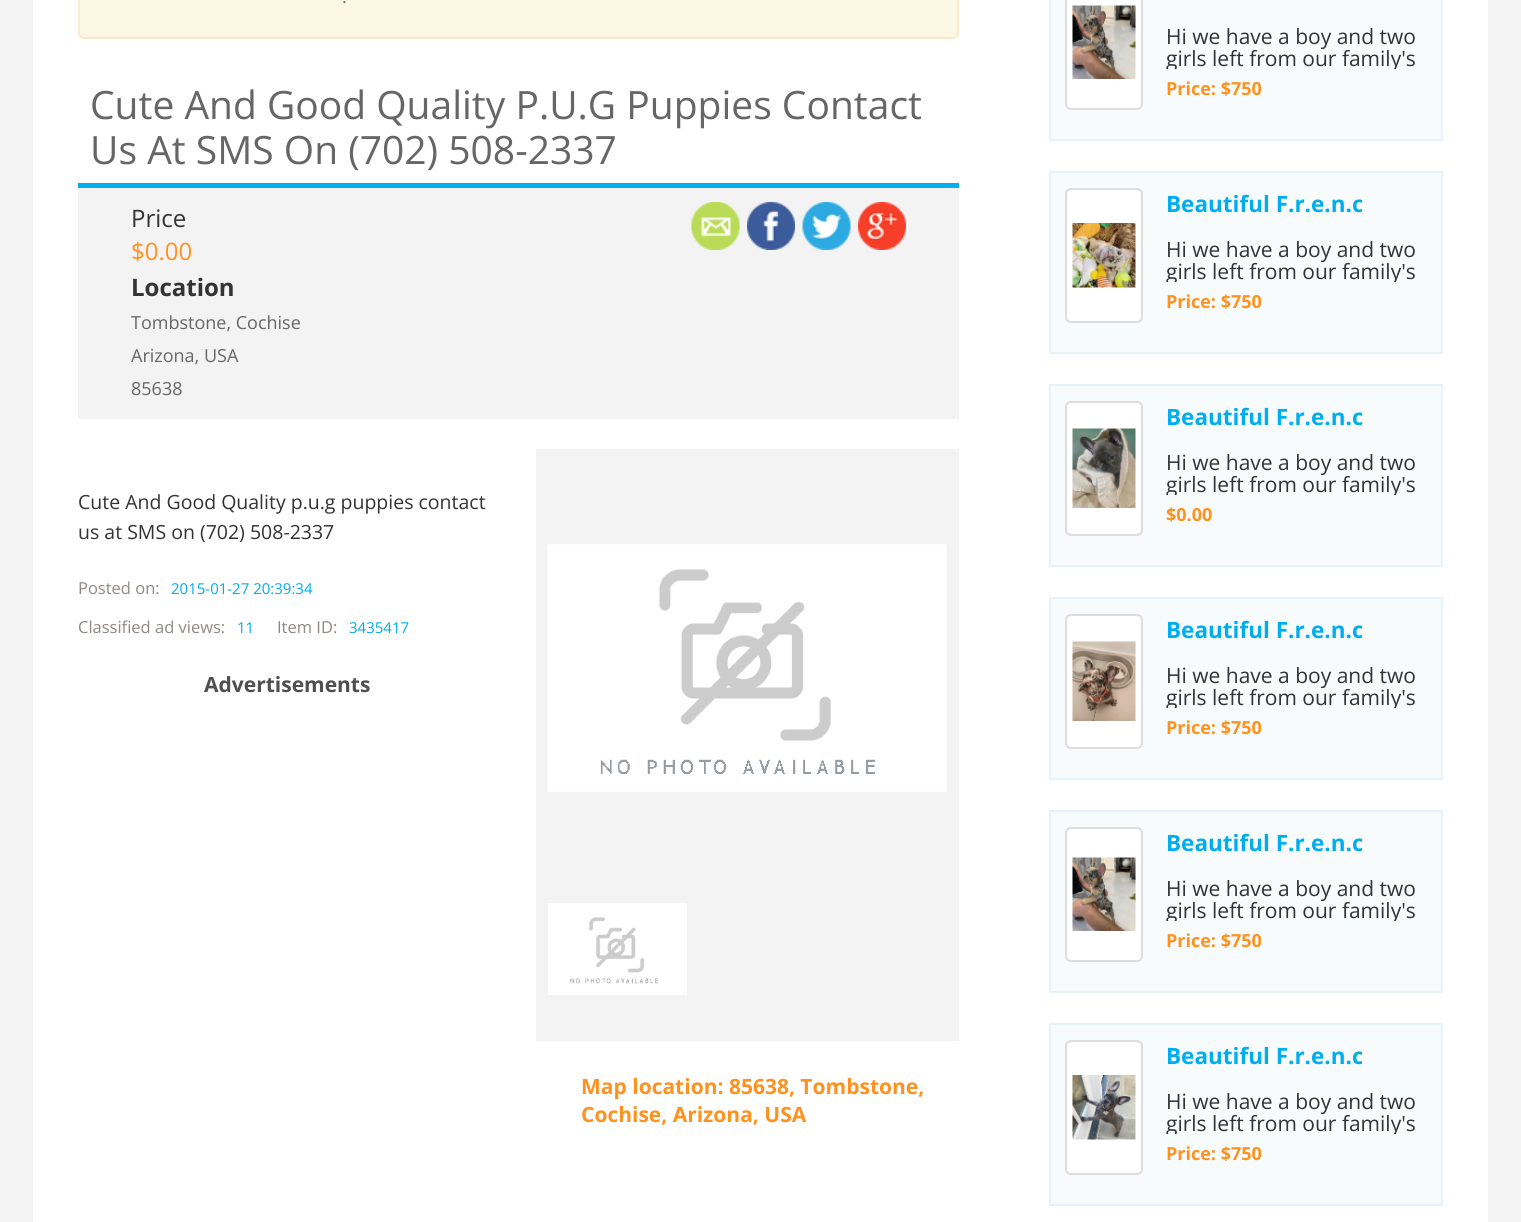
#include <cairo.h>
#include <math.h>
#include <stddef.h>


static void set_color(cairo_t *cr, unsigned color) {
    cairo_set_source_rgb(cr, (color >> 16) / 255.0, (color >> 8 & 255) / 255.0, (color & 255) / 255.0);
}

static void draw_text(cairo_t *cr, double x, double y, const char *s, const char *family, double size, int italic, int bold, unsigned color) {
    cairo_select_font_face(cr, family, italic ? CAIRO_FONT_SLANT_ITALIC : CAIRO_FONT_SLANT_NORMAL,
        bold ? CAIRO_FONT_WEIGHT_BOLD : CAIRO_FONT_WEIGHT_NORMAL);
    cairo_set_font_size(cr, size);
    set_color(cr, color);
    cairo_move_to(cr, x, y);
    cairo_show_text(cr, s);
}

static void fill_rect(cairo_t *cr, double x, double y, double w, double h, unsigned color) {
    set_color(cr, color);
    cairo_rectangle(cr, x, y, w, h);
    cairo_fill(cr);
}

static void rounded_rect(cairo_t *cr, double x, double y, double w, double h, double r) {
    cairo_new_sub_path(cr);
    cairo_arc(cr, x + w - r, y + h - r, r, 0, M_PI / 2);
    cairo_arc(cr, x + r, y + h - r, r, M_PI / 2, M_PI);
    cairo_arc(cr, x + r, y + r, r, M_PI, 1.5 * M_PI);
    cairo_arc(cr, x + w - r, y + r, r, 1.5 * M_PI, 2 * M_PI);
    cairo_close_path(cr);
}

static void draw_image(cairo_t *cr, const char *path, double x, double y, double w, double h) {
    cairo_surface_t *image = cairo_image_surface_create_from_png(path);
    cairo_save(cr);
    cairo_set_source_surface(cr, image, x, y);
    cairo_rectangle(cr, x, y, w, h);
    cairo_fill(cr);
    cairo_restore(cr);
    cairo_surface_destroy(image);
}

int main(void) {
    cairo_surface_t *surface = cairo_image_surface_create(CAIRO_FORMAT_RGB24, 1521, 1222);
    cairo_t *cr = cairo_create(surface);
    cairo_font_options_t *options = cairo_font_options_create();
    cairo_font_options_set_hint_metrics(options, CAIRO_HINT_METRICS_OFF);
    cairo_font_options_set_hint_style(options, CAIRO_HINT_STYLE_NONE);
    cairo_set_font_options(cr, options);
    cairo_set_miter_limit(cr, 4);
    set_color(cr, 0xF3F3F3);
    cairo_paint(cr);
    fill_rect(cr, 33, 0, 1455, 1222, 0xFFFFFF);
    set_color(cr, 0xFCF8E3);
    rounded_rect(cr, 79, -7, 879, 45, 5);
    cairo_fill_preserve(cr);
    set_color(cr, 0xFAEBCC);
    cairo_stroke(cr);
    draw_text(cr, 342, 3, ".", "Open Sans", 18, 0, 0, 0x8A6D3B);
    fill_rect(cr, 78, 183, 881, 5, 0x00AEEF);
    draw_text(cr, 90, 119, "Cute And Good Quality P.U.G Puppies Contact", "Open Sans", 39, 0, 0, 0x666666);
    draw_text(cr, 90, 164, "Us At SMS On (702) 508-2337", "Open Sans", 39, 0, 0, 0x666666);
    fill_rect(cr, 78, 188, 881, 231, 0xF4F3F3);
    draw_text(cr, 131, 227, "Price", "Open Sans", 24, 0, 0, 0x333333);
    draw_text(cr, 131, 260, "$0.00", "Open Sans", 24, 0, 0, 0xFF921E);
    draw_text(cr, 131, 296, "Location", "Open Sans", 24, 0, 1, 0x333333);
    draw_text(cr, 131, 329, "Tombstone, Cochise", "Open Sans", 18, 0, 0, 0x666666);
    draw_text(cr, 131, 362, "Arizona, USA", "Open Sans", 18, 0, 0, 0x666666);
    draw_text(cr, 131, 395, "85638", "Open Sans", 18, 0, 0, 0x666666);
    draw_image(cr, "assets/img1.png", 691, 202, 49, 48);
    draw_image(cr, "assets/img2.png", 747, 202, 48, 48);
    draw_image(cr, "assets/img3.png", 802, 202, 49, 48);
    draw_image(cr, "assets/img4.png", 858, 202, 48, 48);
    draw_text(cr, 78, 509, "Cute And Good Quality p.u.g puppies contact", "Open Sans", 19.5, 0, 0, 0x333333);
    draw_text(cr, 78, 539, "us at SMS on (702) 508-2337", "Open Sans", 19.5, 0, 0, 0x333333);
    draw_text(cr, 78, 594, "Posted on:", "Open Sans", 16.5, 0, 0, 0x908884);
    draw_text(cr, 171, 594, "2015-01-27 20:39:34", "Open Sans", 15, 0, 0, 0x00AEEF);
    draw_text(cr, 78, 633, "Classified ad views:", "Open Sans", 16.5, 0, 0, 0x908884);
    draw_text(cr, 237, 633, "11", "Open Sans", 15, 0, 0, 0x00AEEF);
    draw_text(cr, 277, 633, "Item ID:", "Open Sans", 16.5, 0, 0, 0x908884);
    draw_text(cr, 349, 633, "3435417", "Open Sans", 15, 0, 0, 0x00AEEF);
    draw_text(cr, 204, 692, "Advertisements", "Open Sans", 21, 0, 1, 0x4F4F4F);
    fill_rect(cr, 536, 449, 423, 592, 0xF4F3F3);
    draw_image(cr, "assets/img5.png", 547, 544, 400, 248);
    fill_rect(cr, 548, 903, 139, 92, 0xFFFFFF);
    draw_image(cr, "assets/img6.png", 570, 917, 89, 67);
    draw_text(cr, 581, 1094, "Map location: 85638, Tombstone,", "Open Sans", 21, 0, 1, 0xFF921E);
    draw_text(cr, 581, 1122, "Cochise, Arizona, USA", "Open Sans", 21, 0, 1, 0xFF921E);
    set_color(cr, 0xF8FBFC);
    cairo_rectangle(cr, 1050, -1, 392, 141);
    cairo_fill_preserve(cr);
    set_color(cr, 0xE6F3FD);
    cairo_stroke(cr);
    set_color(cr, 0xFFFFFF);
    rounded_rect(cr, 1066, -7, 76, 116, 5);
    cairo_fill_preserve(cr);
    set_color(cr, 0xDDDDDD);
    cairo_stroke(cr);
    draw_image(cr, "assets/img7.png", 1072, 5, 64, 74);
    draw_text(cr, 1166, 44, "Hi we have a boy and two", "Open Sans", 21, 0, 0, 0x333333);
    cairo_save(cr);
    cairo_rectangle(cr, 1166, 24, 261, 45);
    cairo_clip(cr);
    draw_text(cr, 1166, 66, "girls left from our family's", "Open Sans", 21, 0, 0, 0x333333);
    cairo_restore(cr);
    draw_text(cr, 1166, 95, "Price: $750", "Open Sans", 18, 0, 1, 0xFF921E);
    set_color(cr, 0xF8FBFC);
    cairo_rectangle(cr, 1050, 172, 392, 181);
    cairo_fill_preserve(cr);
    set_color(cr, 0xE6F3FD);
    cairo_stroke(cr);
    set_color(cr, 0xFFFFFF);
    rounded_rect(cr, 1066, 189, 76, 133, 5);
    cairo_fill_preserve(cr);
    set_color(cr, 0xDDDDDD);
    cairo_stroke(cr);
    draw_image(cr, "assets/img8.png", 1072, 223, 64, 65);
    cairo_save(cr);
    cairo_rectangle(cr, 1166, 188, 196, 30);
    cairo_clip(cr);
    draw_text(cr, 1166, 212, "Beautiful F.r.e.n.c", "Open Sans", 22.5, 0, 1, 0x00AEEF);
    cairo_restore(cr);
    draw_text(cr, 1166, 257, "Hi we have a boy and two", "Open Sans", 21, 0, 0, 0x333333);
    cairo_save(cr);
    cairo_rectangle(cr, 1166, 237, 261, 45);
    cairo_clip(cr);
    draw_text(cr, 1166, 279, "girls left from our family's", "Open Sans", 21, 0, 0, 0x333333);
    cairo_restore(cr);
    draw_text(cr, 1166, 308, "Price: $750", "Open Sans", 18, 0, 1, 0xFF921E);
    set_color(cr, 0xF8FBFC);
    cairo_rectangle(cr, 1050, 385, 392, 181);
    cairo_fill_preserve(cr);
    set_color(cr, 0xE6F3FD);
    cairo_stroke(cr);
    set_color(cr, 0xFFFFFF);
    rounded_rect(cr, 1066, 402, 76, 133, 5);
    cairo_fill_preserve(cr);
    set_color(cr, 0xDDDDDD);
    cairo_stroke(cr);
    draw_image(cr, "assets/img9.png", 1072, 428, 64, 80);
    cairo_save(cr);
    cairo_rectangle(cr, 1166, 401, 196, 30);
    cairo_clip(cr);
    draw_text(cr, 1166, 425, "Beautiful F.r.e.n.c", "Open Sans", 22.5, 0, 1, 0x00AEEF);
    cairo_restore(cr);
    draw_text(cr, 1166, 470, "Hi we have a boy and two", "Open Sans", 21, 0, 0, 0x333333);
    cairo_save(cr);
    cairo_rectangle(cr, 1166, 450, 261, 45);
    cairo_clip(cr);
    draw_text(cr, 1166, 492, "girls left from our family's", "Open Sans", 21, 0, 0, 0x333333);
    cairo_restore(cr);
    draw_text(cr, 1166, 521, "$0.00", "Open Sans", 18, 0, 1, 0xFF921E);
    set_color(cr, 0xF8FBFC);
    cairo_rectangle(cr, 1050, 598, 392, 181);
    cairo_fill_preserve(cr);
    set_color(cr, 0xE6F3FD);
    cairo_stroke(cr);
    set_color(cr, 0xFFFFFF);
    rounded_rect(cr, 1066, 615, 76, 133, 5);
    cairo_fill_preserve(cr);
    set_color(cr, 0xDDDDDD);
    cairo_stroke(cr);
    draw_image(cr, "assets/img10.png", 1072, 641, 64, 80);
    cairo_save(cr);
    cairo_rectangle(cr, 1166, 614, 196, 30);
    cairo_clip(cr);
    draw_text(cr, 1166, 638, "Beautiful F.r.e.n.c", "Open Sans", 22.5, 0, 1, 0x00AEEF);
    cairo_restore(cr);
    draw_text(cr, 1166, 683, "Hi we have a boy and two", "Open Sans", 21, 0, 0, 0x333333);
    cairo_save(cr);
    cairo_rectangle(cr, 1166, 663, 261, 45);
    cairo_clip(cr);
    draw_text(cr, 1166, 705, "girls left from our family's", "Open Sans", 21, 0, 0, 0x333333);
    cairo_restore(cr);
    draw_text(cr, 1166, 734, "Price: $750", "Open Sans", 18, 0, 1, 0xFF921E);
    set_color(cr, 0xF8FBFC);
    cairo_rectangle(cr, 1050, 811, 392, 181);
    cairo_fill_preserve(cr);
    set_color(cr, 0xE6F3FD);
    cairo_stroke(cr);
    set_color(cr, 0xFFFFFF);
    rounded_rect(cr, 1066, 828, 76, 133, 5);
    cairo_fill_preserve(cr);
    set_color(cr, 0xDDDDDD);
    cairo_stroke(cr);
    draw_image(cr, "assets/img7.png", 1072, 857, 64, 74);
    cairo_save(cr);
    cairo_rectangle(cr, 1166, 827, 196, 30);
    cairo_clip(cr);
    draw_text(cr, 1166, 851, "Beautiful F.r.e.n.c", "Open Sans", 22.5, 0, 1, 0x00AEEF);
    cairo_restore(cr);
    draw_text(cr, 1166, 896, "Hi we have a boy and two", "Open Sans", 21, 0, 0, 0x333333);
    cairo_save(cr);
    cairo_rectangle(cr, 1166, 876, 261, 45);
    cairo_clip(cr);
    draw_text(cr, 1166, 918, "girls left from our family's", "Open Sans", 21, 0, 0, 0x333333);
    cairo_restore(cr);
    draw_text(cr, 1166, 947, "Price: $750", "Open Sans", 18, 0, 1, 0xFF921E);
    set_color(cr, 0xF8FBFC);
    cairo_rectangle(cr, 1050, 1024, 392, 181);
    cairo_fill_preserve(cr);
    set_color(cr, 0xE6F3FD);
    cairo_stroke(cr);
    set_color(cr, 0xFFFFFF);
    rounded_rect(cr, 1066, 1041, 76, 133, 5);
    cairo_fill_preserve(cr);
    set_color(cr, 0xDDDDDD);
    cairo_stroke(cr);
    draw_image(cr, "assets/img11.png", 1072, 1075, 64, 65);
    cairo_save(cr);
    cairo_rectangle(cr, 1166, 1040, 196, 30);
    cairo_clip(cr);
    draw_text(cr, 1166, 1064, "Beautiful F.r.e.n.c", "Open Sans", 22.5, 0, 1, 0x00AEEF);
    cairo_restore(cr);
    draw_text(cr, 1166, 1109, "Hi we have a boy and two", "Open Sans", 21, 0, 0, 0x333333);
    cairo_save(cr);
    cairo_rectangle(cr, 1166, 1089, 261, 45);
    cairo_clip(cr);
    draw_text(cr, 1166, 1131, "girls left from our family's", "Open Sans", 21, 0, 0, 0x333333);
    cairo_restore(cr);
    draw_text(cr, 1166, 1160, "Price: $750", "Open Sans", 18, 0, 1, 0xFF921E);
    cairo_surface_write_to_png(surface, "output.png");
    cairo_font_options_destroy(options);
    cairo_destroy(cr);
    cairo_surface_destroy(surface);
    return 0;
}
